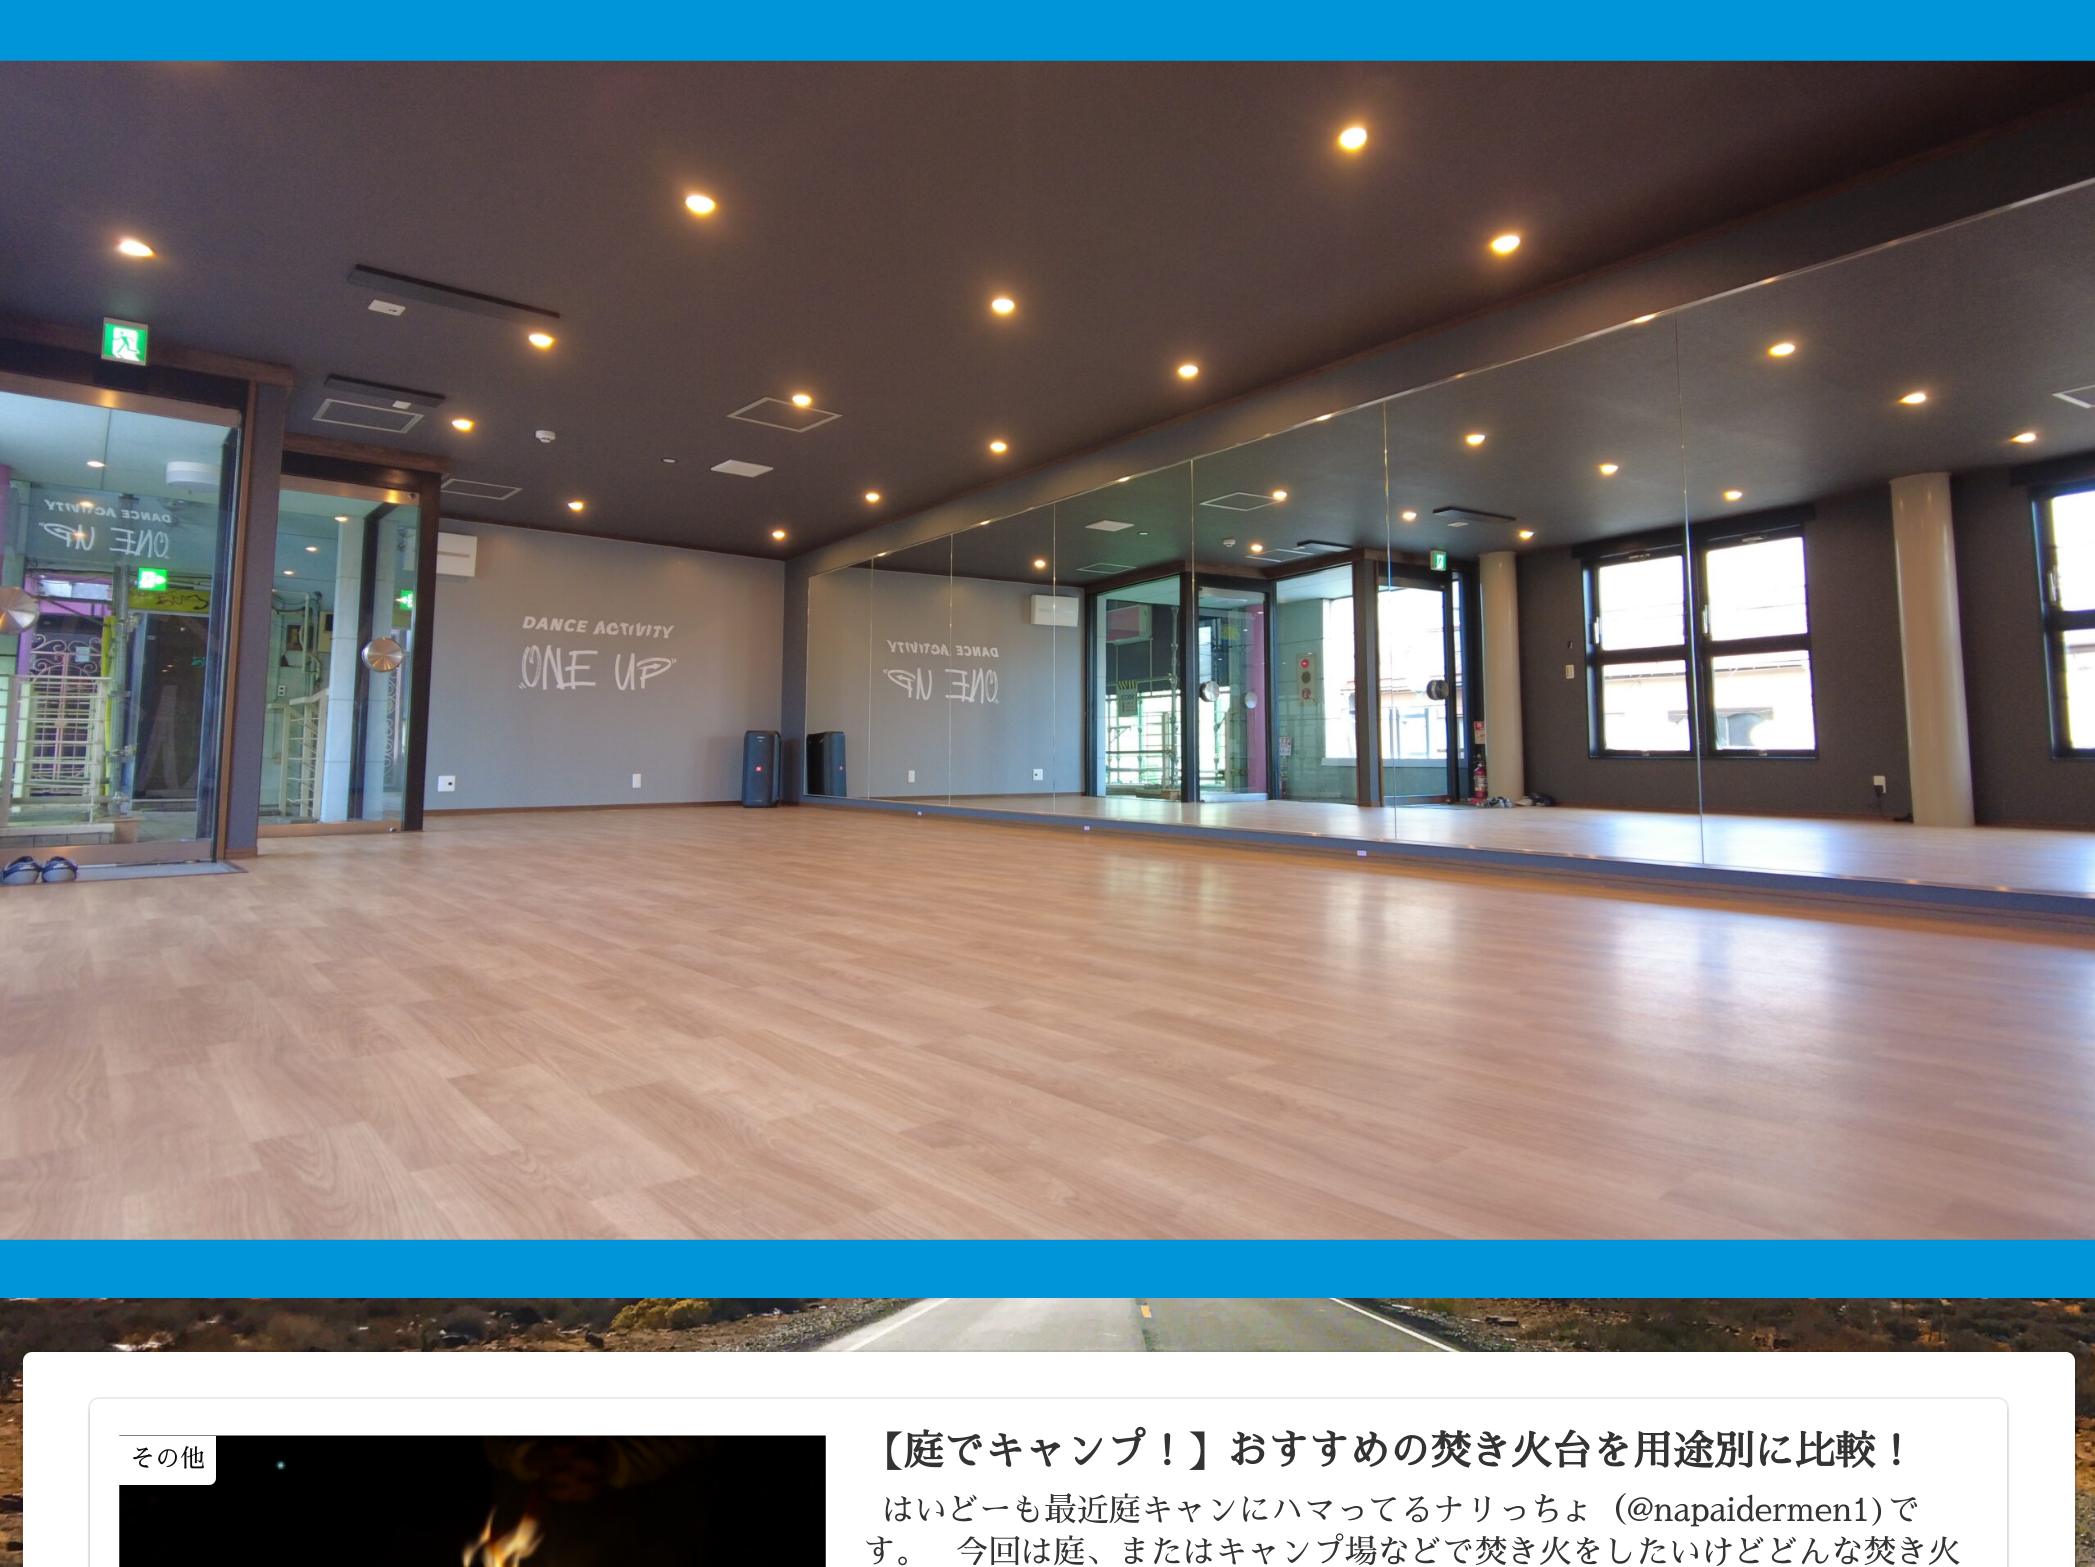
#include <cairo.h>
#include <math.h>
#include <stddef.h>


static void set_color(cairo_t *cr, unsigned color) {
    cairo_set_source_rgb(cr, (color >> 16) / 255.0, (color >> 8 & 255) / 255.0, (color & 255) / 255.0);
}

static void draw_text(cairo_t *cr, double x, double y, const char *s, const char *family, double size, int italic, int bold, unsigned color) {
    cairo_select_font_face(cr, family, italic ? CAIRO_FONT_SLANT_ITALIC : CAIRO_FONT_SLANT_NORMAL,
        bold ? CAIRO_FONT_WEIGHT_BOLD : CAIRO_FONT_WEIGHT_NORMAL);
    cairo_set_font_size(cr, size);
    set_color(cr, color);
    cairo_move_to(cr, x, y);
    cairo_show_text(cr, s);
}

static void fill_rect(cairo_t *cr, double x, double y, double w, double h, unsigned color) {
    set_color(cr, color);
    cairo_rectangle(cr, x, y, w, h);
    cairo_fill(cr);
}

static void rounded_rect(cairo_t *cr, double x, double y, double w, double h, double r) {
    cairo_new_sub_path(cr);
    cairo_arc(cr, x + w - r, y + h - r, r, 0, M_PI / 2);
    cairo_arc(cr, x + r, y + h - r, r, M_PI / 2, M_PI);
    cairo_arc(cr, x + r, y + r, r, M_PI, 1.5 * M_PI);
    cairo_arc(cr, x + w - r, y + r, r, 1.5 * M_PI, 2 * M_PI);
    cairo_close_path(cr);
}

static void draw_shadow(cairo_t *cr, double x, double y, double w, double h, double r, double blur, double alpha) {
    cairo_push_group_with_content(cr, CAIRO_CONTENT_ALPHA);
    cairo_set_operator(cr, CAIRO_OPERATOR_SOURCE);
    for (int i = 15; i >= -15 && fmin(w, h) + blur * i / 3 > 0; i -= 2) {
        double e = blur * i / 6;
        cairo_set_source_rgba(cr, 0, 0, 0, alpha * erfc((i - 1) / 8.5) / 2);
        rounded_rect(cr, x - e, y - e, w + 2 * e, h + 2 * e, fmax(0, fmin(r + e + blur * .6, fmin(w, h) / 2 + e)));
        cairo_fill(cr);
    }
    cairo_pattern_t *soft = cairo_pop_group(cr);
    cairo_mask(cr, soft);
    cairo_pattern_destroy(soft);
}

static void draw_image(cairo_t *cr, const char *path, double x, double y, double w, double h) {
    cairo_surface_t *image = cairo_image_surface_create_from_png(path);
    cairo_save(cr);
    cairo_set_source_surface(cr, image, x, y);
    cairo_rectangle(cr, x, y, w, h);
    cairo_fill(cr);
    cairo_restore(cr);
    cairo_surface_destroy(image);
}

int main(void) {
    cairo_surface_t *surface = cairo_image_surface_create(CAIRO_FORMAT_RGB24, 2095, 1567);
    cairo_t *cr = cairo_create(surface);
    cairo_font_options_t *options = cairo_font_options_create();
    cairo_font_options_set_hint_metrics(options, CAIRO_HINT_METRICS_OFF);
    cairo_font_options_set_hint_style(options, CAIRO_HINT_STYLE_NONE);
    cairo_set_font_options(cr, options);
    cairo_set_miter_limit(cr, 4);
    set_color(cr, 0xFFFFFF);
    cairo_paint(cr);
    draw_image(cr, "assets/img1.png", 0, 1298, 2095, 269);
    fill_rect(cr, 0, 0, 2095, 1298, 0x0095D9);
    draw_image(cr, "assets/img2.png", 0, 60, 2095, 1180);
    rounded_rect(cr, 21, 1351, 2055, 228, 10);
    cairo_set_source_rgba(cr, 0, 0, 0, 0.08);
    cairo_stroke(cr);
    set_color(cr, 0x000000);
    draw_shadow(cr, 23, 1357, 2052, 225, 9, 2, 0.16);
    set_color(cr, 0xFFFFFF);
    rounded_rect(cr, 23, 1352, 2052, 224, 9);
    cairo_fill(cr);
    rounded_rect(cr, 89, 1398, 1919, 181, 10);
    set_color(cr, 0xEBEBEB);
    cairo_stroke(cr);
    cairo_save(cr);
    cairo_set_fill_rule(cr, CAIRO_FILL_RULE_EVEN_ODD);
    cairo_new_path(cr);
    cairo_move_to(cr, 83, 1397);
    cairo_line_to(cr, 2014, 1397);
    cairo_line_to(cr, 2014, 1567);
    cairo_line_to(cr, 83, 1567);
    cairo_close_path(cr);
    cairo_move_to(cr, 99, 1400);
    cairo_line_to(cr, 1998, 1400);
    cairo_curve_to(cr, 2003, 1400, 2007, 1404, 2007, 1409);
    cairo_line_to(cr, 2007, 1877);
    cairo_curve_to(cr, 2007, 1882, 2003, 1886, 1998, 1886);
    cairo_line_to(cr, 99, 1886);
    cairo_curve_to(cr, 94, 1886, 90, 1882, 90, 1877);
    cairo_line_to(cr, 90, 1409);
    cairo_curve_to(cr, 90, 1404, 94, 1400, 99, 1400);
    cairo_close_path(cr);
    cairo_clip(cr);
    set_color(cr, 0x000000);
    draw_shadow(cr, 90, 1404, 1917, 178, 9, 2, 0.16);
    cairo_restore(cr);
    draw_image(cr, "assets/img3.png", 119, 1435, 707, 132);
    set_color(cr, 0xFFFFFF);
    cairo_new_path(cr);
    cairo_move_to(cr, 119, 1436);
    cairo_line_to(cr, 216, 1436);
    cairo_line_to(cr, 216, 1478);
    cairo_curve_to(cr, 216, 1482, 213, 1485, 209, 1485);
    cairo_line_to(cr, 119, 1485);
    cairo_close_path(cr);
    cairo_fill(cr);
    draw_text(cr, 130, 1467, "その他", "Sawarabi Mincho", 25, 0, 0, 0x0A0A0A);
    draw_text(cr, 863, 1465, "【庭でキャンプ！】おすすめの焚き火台を用途別に比較！", "Sawarabi Mincho", 40.5, 0, 1, 0x333333);
    draw_text(cr, 882, 1521, "はいどーも最近庭キャンにハマってるナリっちょ（@napaidermen1)で", "Sawarabi Mincho", 32.4, 0, 0, 0x333333);
    draw_text(cr, 863, 1563, "す。", "Sawarabi Mincho", 32.4, 0, 0, 0x333333);
    draw_text(cr, 956, 1563, "今回は庭、またはキャンプ場などで焚き火をしたいけどどんな焚き火", "Sawarabi Mincho", 32.4, 0, 0, 0x333333);
    cairo_surface_write_to_png(surface, "output.png");
    cairo_font_options_destroy(options);
    cairo_destroy(cr);
    cairo_surface_destroy(surface);
    return 0;
}
